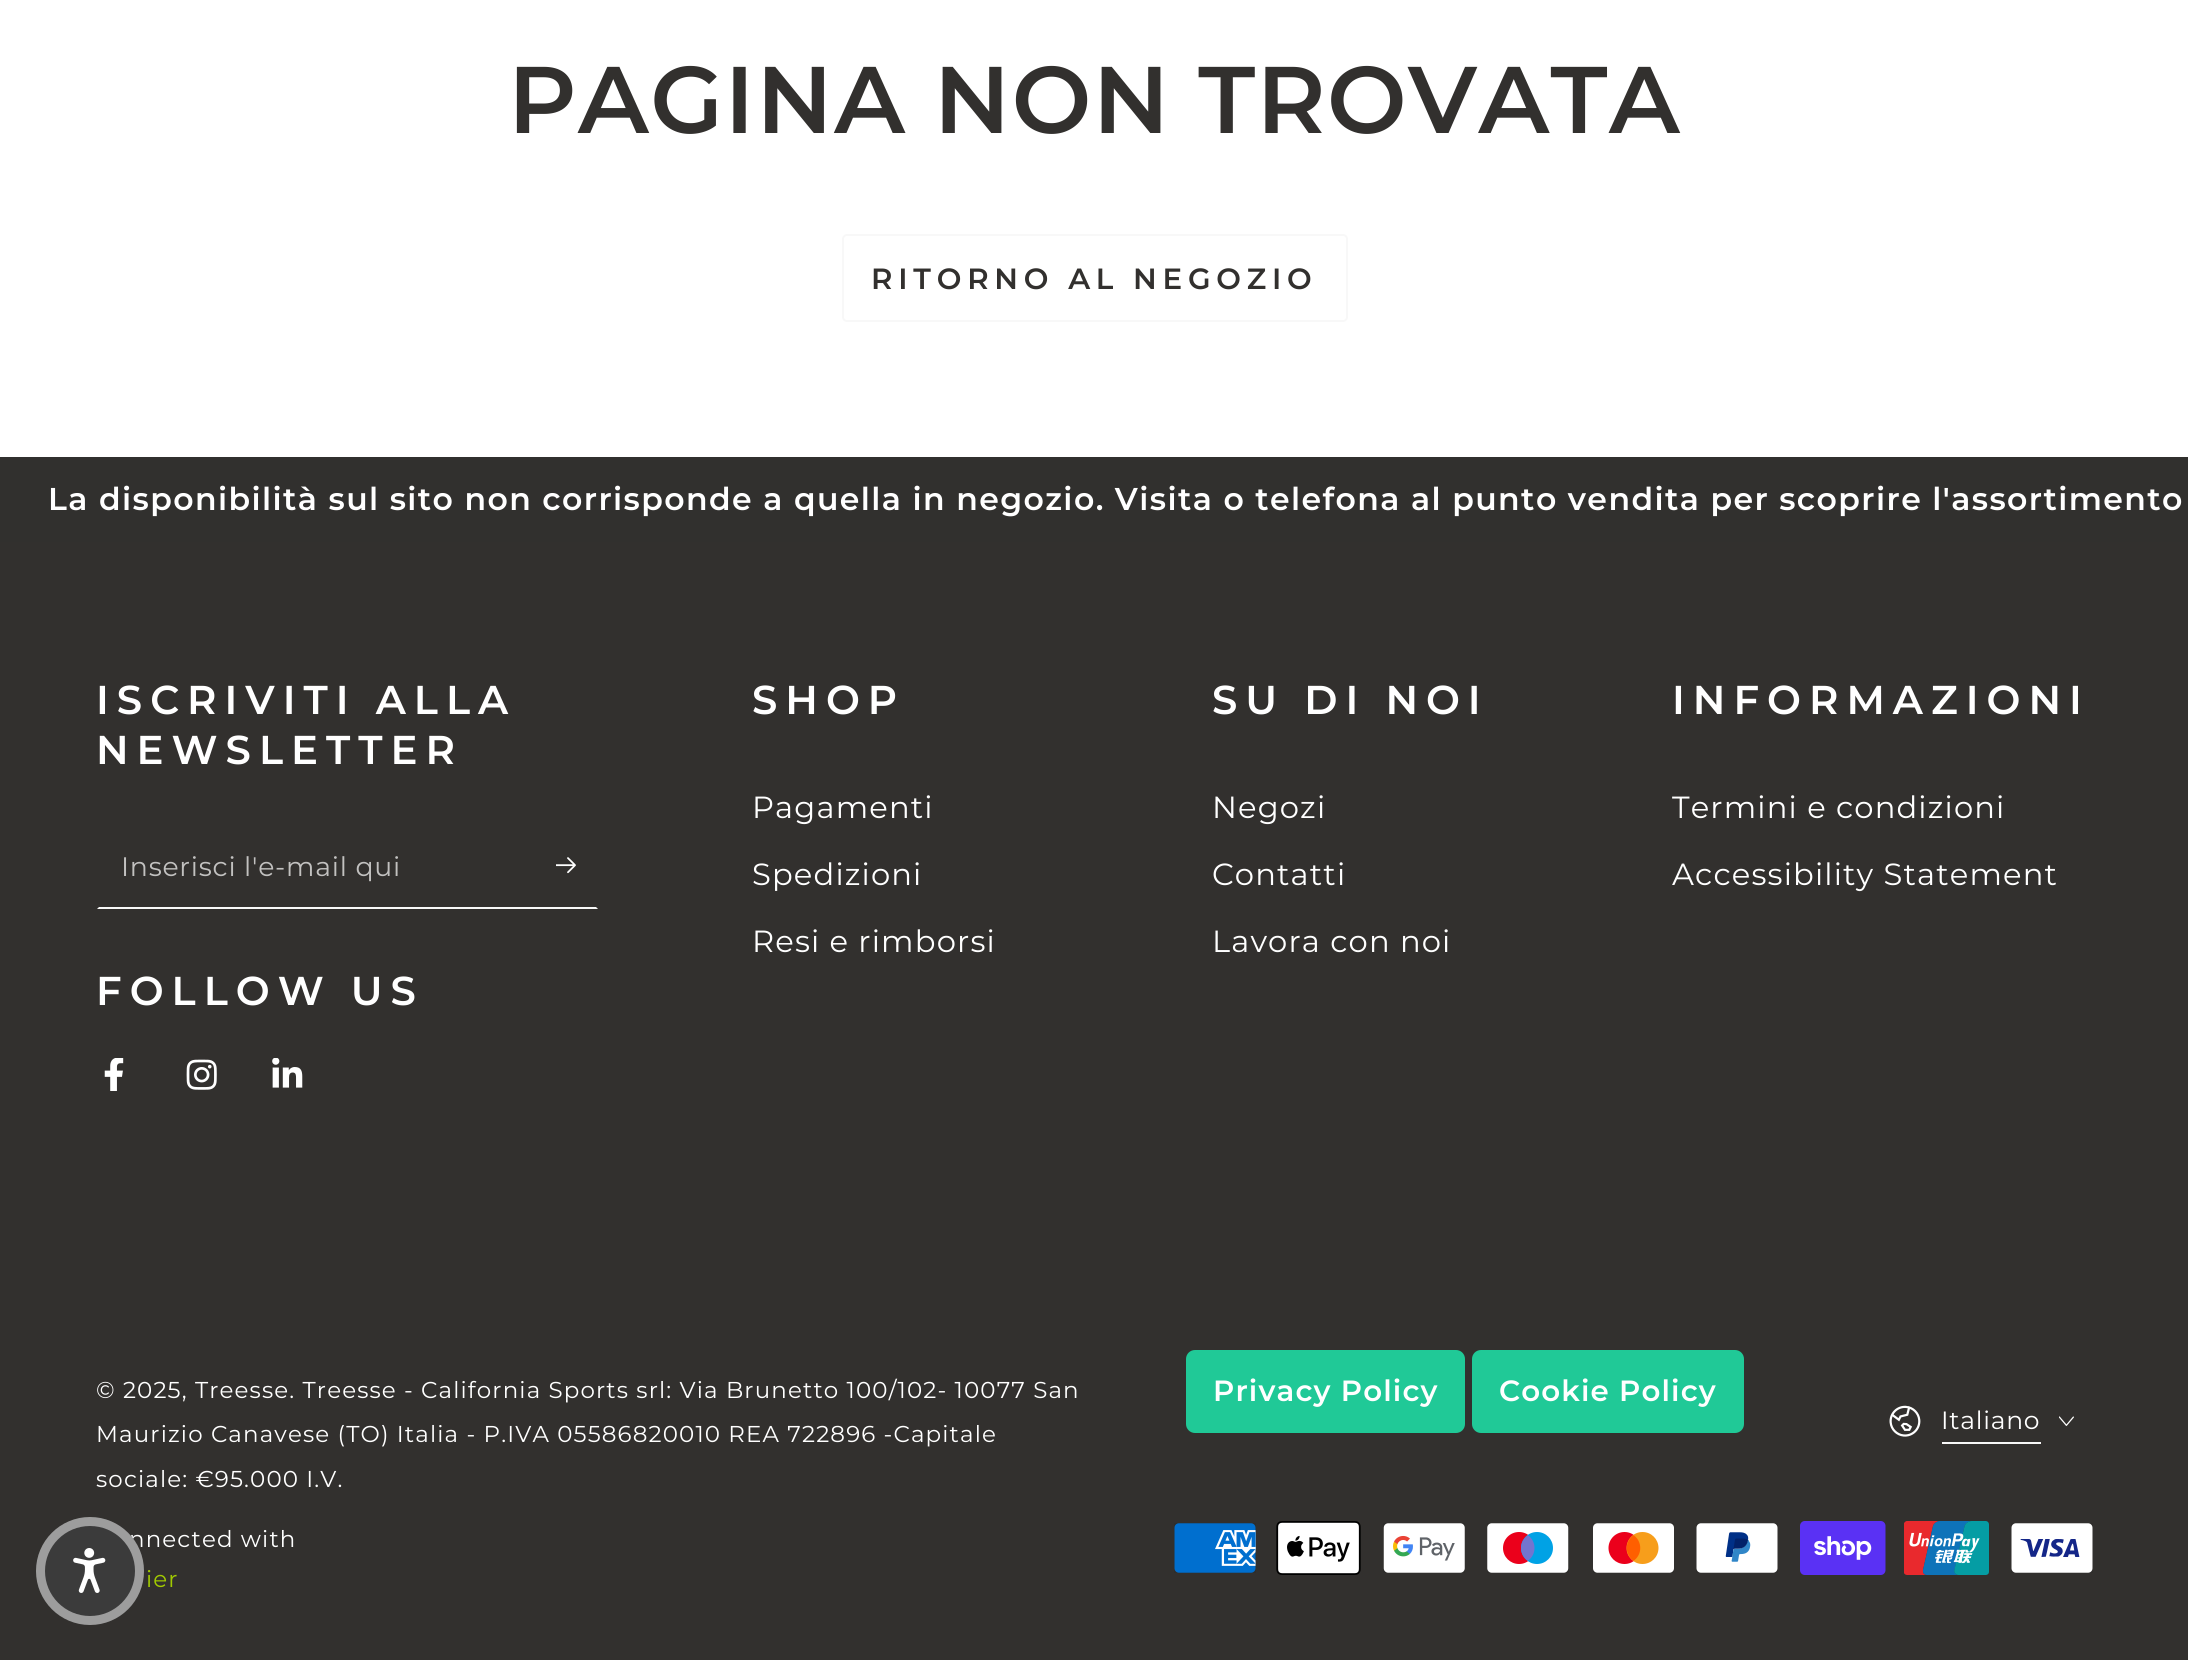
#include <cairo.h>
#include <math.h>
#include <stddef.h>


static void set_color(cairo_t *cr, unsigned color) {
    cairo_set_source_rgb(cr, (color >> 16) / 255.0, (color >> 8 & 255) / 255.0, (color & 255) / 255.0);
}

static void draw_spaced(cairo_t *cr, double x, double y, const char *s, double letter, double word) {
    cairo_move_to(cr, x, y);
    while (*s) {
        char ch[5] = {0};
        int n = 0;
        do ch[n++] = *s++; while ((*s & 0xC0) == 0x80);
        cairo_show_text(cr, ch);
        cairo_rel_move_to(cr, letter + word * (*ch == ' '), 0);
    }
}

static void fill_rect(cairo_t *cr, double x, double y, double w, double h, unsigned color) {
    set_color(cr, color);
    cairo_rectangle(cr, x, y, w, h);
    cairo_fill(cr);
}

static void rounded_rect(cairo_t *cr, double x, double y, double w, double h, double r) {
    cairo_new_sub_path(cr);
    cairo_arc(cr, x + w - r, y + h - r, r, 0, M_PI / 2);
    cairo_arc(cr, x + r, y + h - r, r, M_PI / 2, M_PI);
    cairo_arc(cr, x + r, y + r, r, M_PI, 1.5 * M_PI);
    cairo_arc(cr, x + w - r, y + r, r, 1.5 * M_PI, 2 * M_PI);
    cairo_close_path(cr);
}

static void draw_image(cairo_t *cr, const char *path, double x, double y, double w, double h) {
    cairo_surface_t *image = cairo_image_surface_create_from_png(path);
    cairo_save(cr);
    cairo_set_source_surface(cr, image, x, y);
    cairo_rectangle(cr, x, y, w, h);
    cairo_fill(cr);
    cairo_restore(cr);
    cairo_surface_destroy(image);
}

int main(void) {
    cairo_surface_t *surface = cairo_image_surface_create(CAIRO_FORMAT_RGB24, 2188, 1660);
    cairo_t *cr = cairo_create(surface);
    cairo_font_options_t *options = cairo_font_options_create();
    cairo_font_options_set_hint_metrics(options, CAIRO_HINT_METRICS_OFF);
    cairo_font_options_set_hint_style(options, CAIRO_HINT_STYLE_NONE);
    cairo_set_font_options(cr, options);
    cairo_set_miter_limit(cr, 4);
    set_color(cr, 0xFFFFFF);
    cairo_paint(cr);
    cairo_select_font_face(cr, "Montserrat SemiBold", CAIRO_FONT_SLANT_NORMAL, CAIRO_FONT_WEIGHT_NORMAL);
    cairo_set_font_size(cr, 94.5);
    set_color(cr, 0x32302E);
    draw_spaced(cr, 508, 133, "PAGINA NON TROVATA", 1.42, 0);
    rounded_rect(cr, 843, 235, 504, 86, 4);
    set_color(cr, 0xF8F8F8);
    cairo_stroke(cr);
    cairo_set_font_size(cr, 29.25);
    set_color(cr, 0x32302E);
    draw_spaced(cr, 871, 289, "RITORNO AL NEGOZIO", 5.8, 0);
    fill_rect(cr, 0, 457, 2188, 85, 0x31302E);
    cairo_set_font_size(cr, 31.5);
    set_color(cr, 0xFFFFFF);
    draw_spaced(cr, 48, 510, "La disponibilità sul sito non corrisponde a quella in negozio. Visita o telefona al punto vendita per scoprire l'assortimento", 1.42, 0);
    fill_rect(cr, 0, 542, 2188, 1118, 0x32302E);
    cairo_set_font_size(cr, 40.25);
    set_color(cr, 0xFFFFFF);
    draw_spaced(cr, 96, 714, "ISCRIVITI ALLA", 8, 0);
    draw_spaced(cr, 96, 764, "NEWSLETTER", 8, 0);
    set_color(cr, 0xF8F8F8);
    cairo_new_path(cr);
    cairo_move_to(cr, 598, 909);
    cairo_line_to(cr, 97, 909);
    cairo_line_to(cr, 99, 907);
    cairo_line_to(cr, 596, 907);
    cairo_close_path(cr);
    cairo_fill(cr);
    cairo_select_font_face(cr, "Montserrat", CAIRO_FONT_SLANT_NORMAL, CAIRO_FONT_WEIGHT_NORMAL);
    cairo_set_font_size(cr, 26.75);
    set_color(cr, 0xC2C1C0);
    draw_spaced(cr, 121, 876, "Inserisci l'e-mail qui", 0.75, 0);
    draw_image(cr, "assets/img1.png", 556, 857, 20, 17);
    cairo_select_font_face(cr, "Montserrat SemiBold", CAIRO_FONT_SLANT_NORMAL, CAIRO_FONT_WEIGHT_NORMAL);
    cairo_set_font_size(cr, 40.25);
    set_color(cr, 0xFFFFFF);
    draw_spaced(cr, 96, 1005, "FOLLOW US", 8, 0);
    draw_image(cr, "assets/img2.png", 104, 1058, 20, 33);
    draw_image(cr, "assets/img3.png", 186, 1059, 31, 31);
    draw_image(cr, "assets/img4.png", 272, 1058, 31, 30);
    draw_spaced(cr, 752, 714, "SHOP", 8, 0);
    cairo_select_font_face(cr, "Montserrat", CAIRO_FONT_SLANT_NORMAL, CAIRO_FONT_WEIGHT_NORMAL);
    cairo_set_font_size(cr, 30.6);
    draw_spaced(cr, 752, 818, "Pagamenti", 1.15, 0);
    draw_spaced(cr, 752, 885, "Spedizioni", 1.15, 0);
    draw_spaced(cr, 752, 952, "Resi e rimborsi", 1.15, 0);
    cairo_select_font_face(cr, "Montserrat SemiBold", CAIRO_FONT_SLANT_NORMAL, CAIRO_FONT_WEIGHT_NORMAL);
    cairo_set_font_size(cr, 40.25);
    draw_spaced(cr, 1212, 714, "SU DI NOI", 8, 0);
    cairo_select_font_face(cr, "Montserrat", CAIRO_FONT_SLANT_NORMAL, CAIRO_FONT_WEIGHT_NORMAL);
    cairo_set_font_size(cr, 30.6);
    draw_spaced(cr, 1212, 818, "Negozi", 1.15, 0);
    draw_spaced(cr, 1212, 885, "Contatti", 1.15, 0);
    draw_spaced(cr, 1212, 952, "Lavora con noi", 1.15, 0);
    cairo_select_font_face(cr, "Montserrat SemiBold", CAIRO_FONT_SLANT_NORMAL, CAIRO_FONT_WEIGHT_NORMAL);
    cairo_set_font_size(cr, 40.25);
    draw_spaced(cr, 1672, 714, "INFORMAZIONI", 8, 0);
    cairo_select_font_face(cr, "Montserrat", CAIRO_FONT_SLANT_NORMAL, CAIRO_FONT_WEIGHT_NORMAL);
    cairo_set_font_size(cr, 30.6);
    draw_spaced(cr, 1672, 818, "Termini e condizioni", 1.15, 0);
    draw_spaced(cr, 1672, 885, "Accessibility Statement", 1.15, 0);
    cairo_set_font_size(cr, 22.95);
    draw_spaced(cr, 96, 1398, "© 2025, Treesse. Treesse - California Sports srl: Via Brunetto 100/102- 10077 San", 1.15, 0);
    draw_spaced(cr, 96, 1442, "Maurizio Canavese (TO) Italia - P.IVA 05586820010 REA 722896 -Capitale", 1.15, 0);
    draw_spaced(cr, 96, 1487, "sociale: €95.000 I.V.", 1.15, 0);
    draw_spaced(cr, 129, 1547, "nnected with", 1.15, 0);
    set_color(cr, 0xA1CA00);
    draw_spaced(cr, 146, 1587, "ier", 1.15, 0);
    set_color(cr, 0x20C997);
    rounded_rect(cr, 1186, 1350, 279, 83, 9);
    cairo_fill(cr);
    cairo_select_font_face(cr, "Montserrat SemiBold", CAIRO_FONT_SLANT_NORMAL, CAIRO_FONT_WEIGHT_NORMAL);
    cairo_set_font_size(cr, 29.25);
    set_color(cr, 0xFFFFFF);
    draw_spaced(cr, 1213, 1401, "Privacy Policy", 1.15, 0);
    set_color(cr, 0x20C997);
    rounded_rect(cr, 1472, 1350, 272, 83, 9);
    cairo_fill(cr);
    set_color(cr, 0xFFFFFF);
    draw_spaced(cr, 1499, 1401, "Cookie Policy", 1.15, 0);
    draw_image(cr, "assets/img5.png", 1889, 1405, 32, 32);
    fill_rect(cr, 1942, 1442, 99, 2, 0xF8F8F8);
    cairo_select_font_face(cr, "Montserrat", CAIRO_FONT_SLANT_NORMAL, CAIRO_FONT_WEIGHT_NORMAL);
    cairo_set_font_size(cr, 25);
    set_color(cr, 0xFFFFFF);
    draw_spaced(cr, 1941, 1429, "Italiano", 0.75, 0);
    draw_image(cr, "assets/img6.png", 2059, 1416, 15, 10);
    draw_image(cr, "assets/img7.png", 1174, 1523, 82, 50);
    draw_image(cr, "assets/img8.png", 1276, 1521, 85, 54);
    draw_image(cr, "assets/img9.png", 1383, 1523, 82, 50);
    draw_image(cr, "assets/img10.png", 1487, 1523, 82, 50);
    draw_image(cr, "assets/img11.png", 1593, 1523, 81, 50);
    draw_image(cr, "assets/img12.png", 1696, 1523, 82, 50);
    draw_image(cr, "assets/img13.png", 1800, 1521, 86, 54);
    draw_image(cr, "assets/img14.png", 1904, 1521, 85, 54);
    draw_image(cr, "assets/img15.png", 2011, 1523, 82, 50);
    set_color(cr, 0x3B3B3B);
    cairo_arc(cr, 90, 1571, 54, 0, 2 * M_PI);
    cairo_fill(cr);
    cairo_arc(cr, 90, 1571, 49.5, 0, 2 * M_PI);
    cairo_set_source_rgba(cr, 1, 1, 1, 0.5);
    cairo_set_line_width(cr, 9);
    cairo_stroke(cr);
    draw_image(cr, "assets/img16.png", 73, 1548, 33, 45);
    cairo_surface_write_to_png(surface, "output.png");
    cairo_font_options_destroy(options);
    cairo_destroy(cr);
    cairo_surface_destroy(surface);
    return 0;
}
